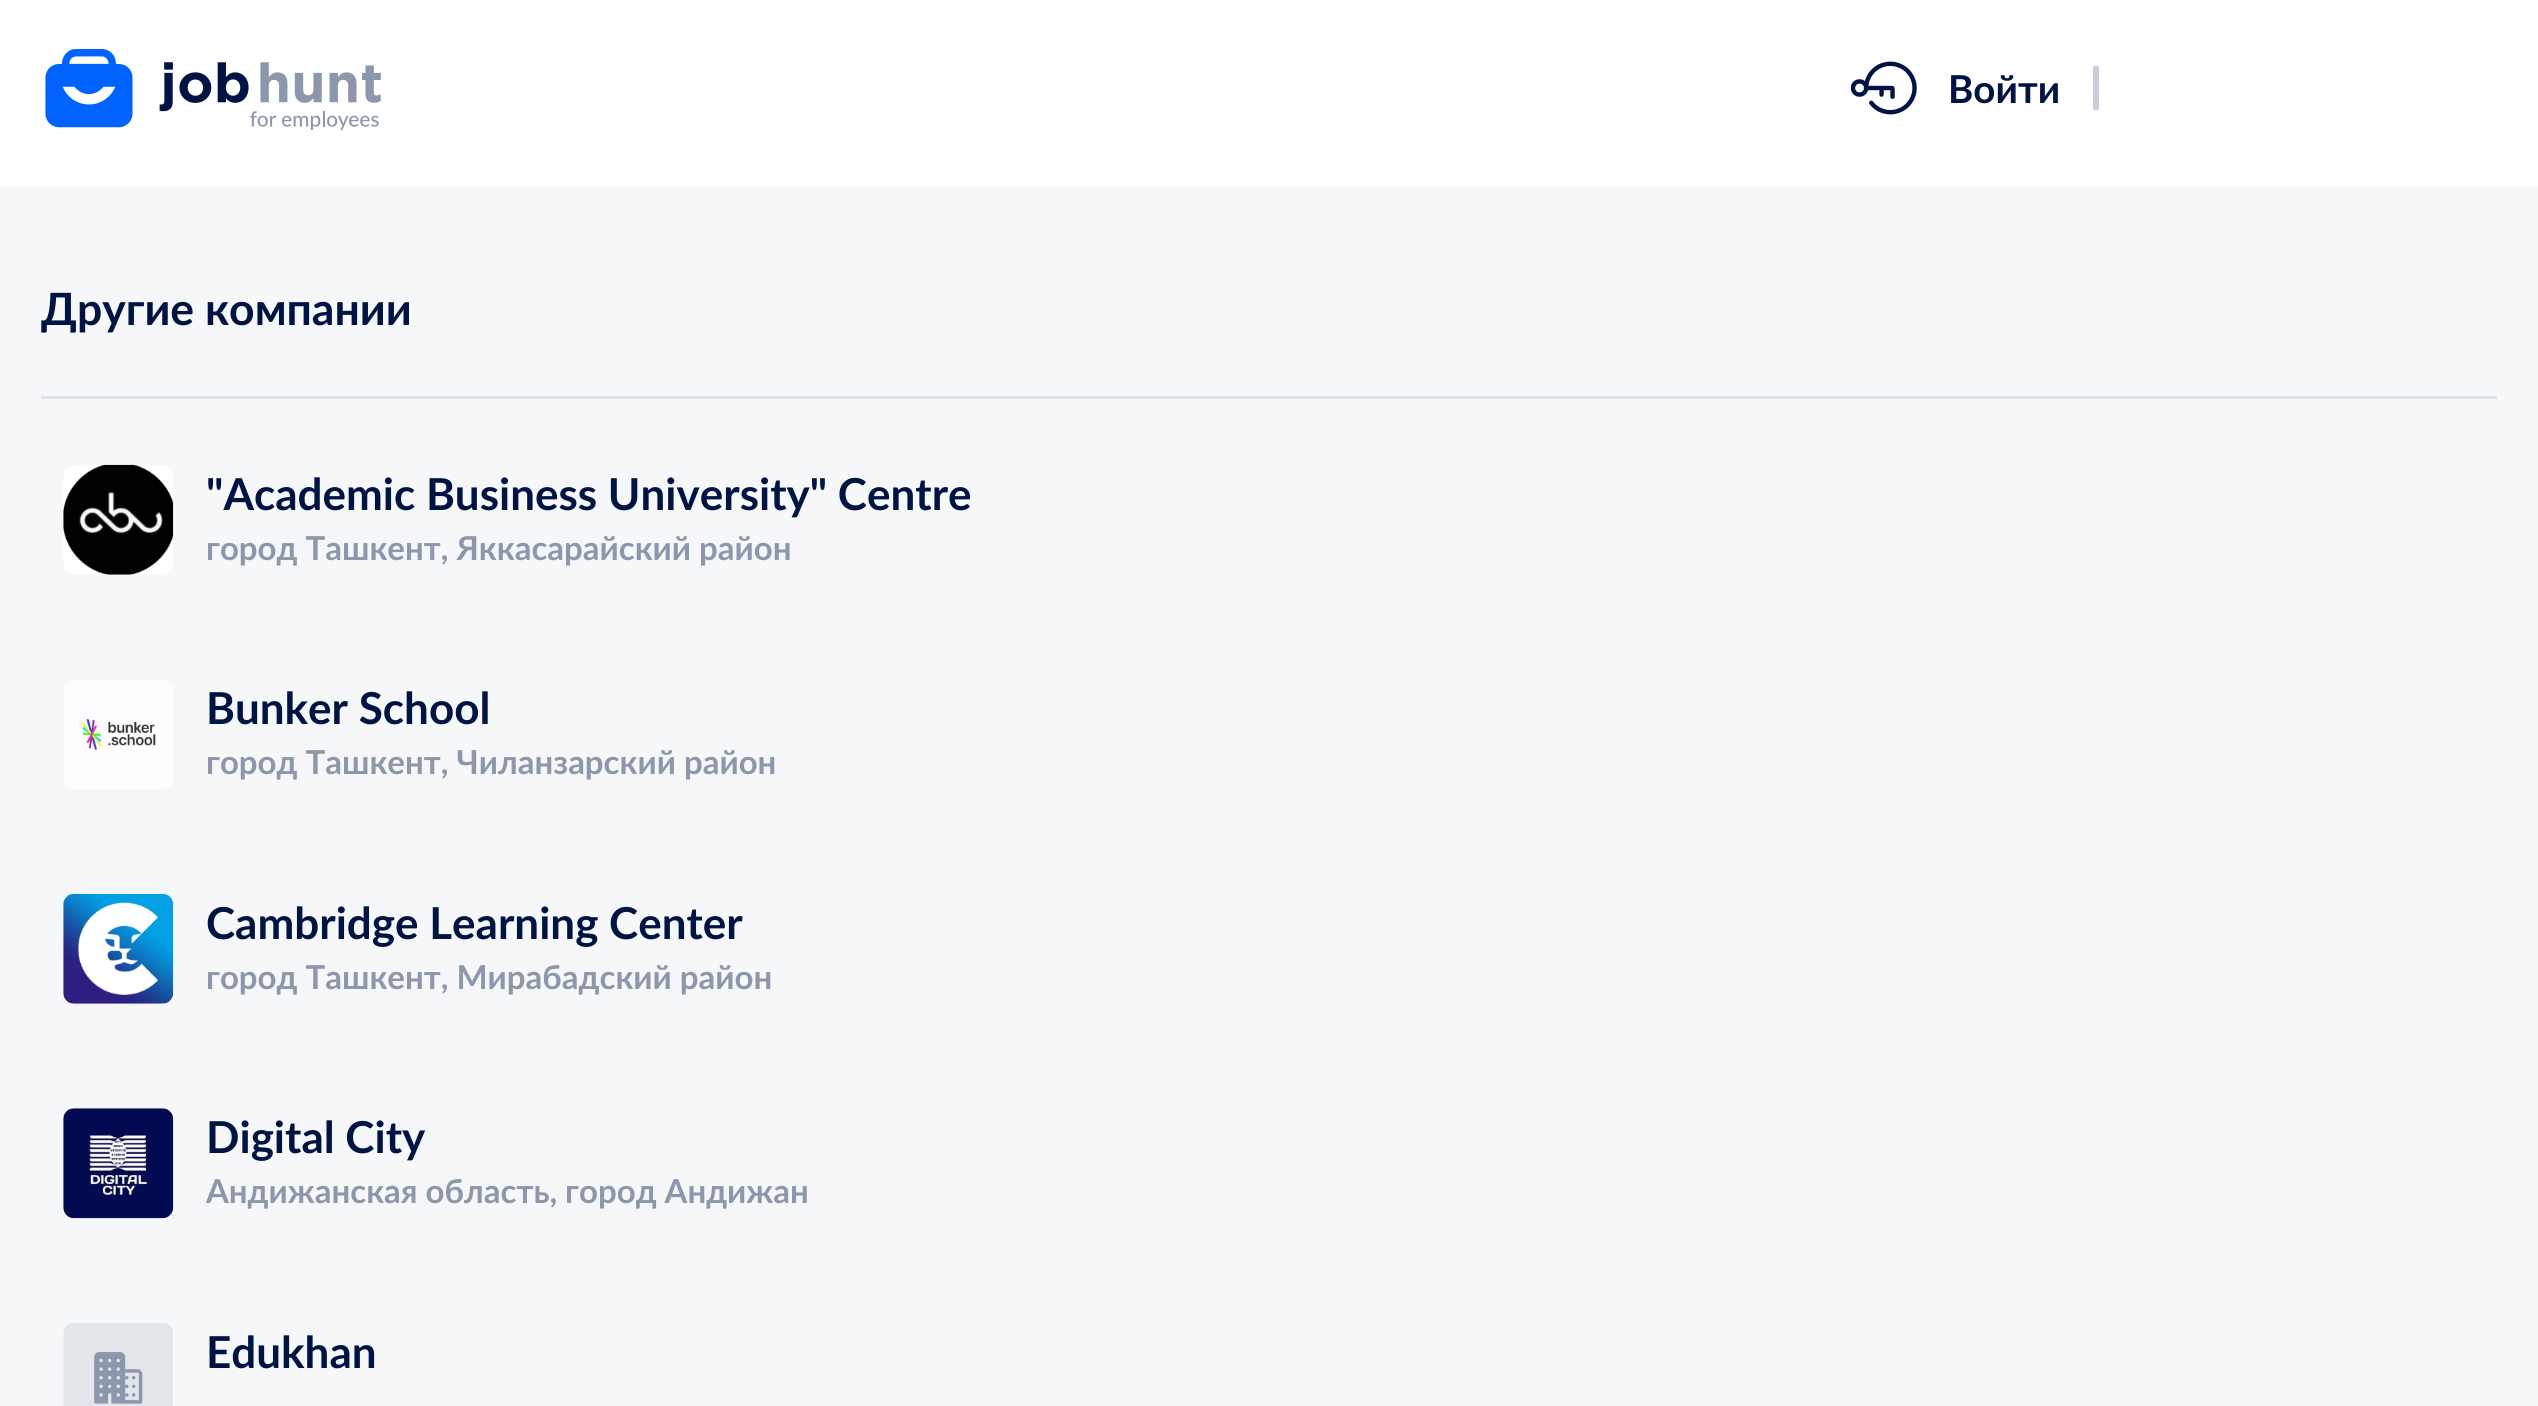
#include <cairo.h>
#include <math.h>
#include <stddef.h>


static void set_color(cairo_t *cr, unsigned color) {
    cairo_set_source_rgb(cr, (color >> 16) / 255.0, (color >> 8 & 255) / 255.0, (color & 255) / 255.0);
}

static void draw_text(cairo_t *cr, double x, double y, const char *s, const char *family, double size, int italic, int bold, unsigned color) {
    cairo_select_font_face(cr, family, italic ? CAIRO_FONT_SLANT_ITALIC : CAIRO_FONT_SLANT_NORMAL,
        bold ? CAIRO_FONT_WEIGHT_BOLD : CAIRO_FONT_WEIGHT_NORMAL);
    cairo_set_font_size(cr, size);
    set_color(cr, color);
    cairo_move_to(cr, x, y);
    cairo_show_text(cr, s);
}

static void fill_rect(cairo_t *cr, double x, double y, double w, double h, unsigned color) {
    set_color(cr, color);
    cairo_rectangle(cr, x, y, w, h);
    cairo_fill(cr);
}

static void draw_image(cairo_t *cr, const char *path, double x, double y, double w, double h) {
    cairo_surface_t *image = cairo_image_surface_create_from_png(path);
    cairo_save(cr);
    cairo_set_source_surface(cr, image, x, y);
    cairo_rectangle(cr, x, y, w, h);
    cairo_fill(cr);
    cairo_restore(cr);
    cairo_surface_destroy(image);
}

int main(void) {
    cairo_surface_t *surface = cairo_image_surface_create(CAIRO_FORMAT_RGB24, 2538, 1406);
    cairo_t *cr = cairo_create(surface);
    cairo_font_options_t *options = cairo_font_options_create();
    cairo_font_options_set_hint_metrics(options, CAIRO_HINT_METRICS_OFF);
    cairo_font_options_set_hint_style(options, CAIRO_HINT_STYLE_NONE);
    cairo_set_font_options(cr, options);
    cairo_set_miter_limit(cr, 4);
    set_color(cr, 0xFFFFFF);
    cairo_paint(cr);
    draw_image(cr, "assets/img1.png", 45, 49, 336, 82);
    draw_image(cr, "assets/img2.png", 1851, 61, 66, 54);
    draw_text(cr, 1948, 103, "Войти", "Lato", 38.5, 0, 1, 0x001444);
    fill_rect(cr, 2093, 66, 6, 44, 0xC8CDD7);
    fill_rect(cr, 0, 187, 2538, 1219, 0xF5F7F9);
    draw_text(cr, 41, 325, "Другие компании", "Lato", 44.5, 0, 1, 0x001444);
    fill_rect(cr, 41, 396, 2456, 3, 0xDEE2E6);
    draw_image(cr, "assets/img3.png", 63, 464, 111, 111);
    draw_text(cr, 206, 510, "\"Academic Business University\" Centre", "Lato", 44, 0, 1, 0x001444);
    draw_text(cr, 206, 560, "город Ташкент, Яккасарайский район", "Lato", 33, 0, 1, 0x8C97AB);
    draw_image(cr, "assets/img4.png", 63, 679, 110, 110);
    draw_text(cr, 206, 724, "Bunker School", "Lato", 44, 0, 1, 0x001444);
    draw_text(cr, 206, 774, "город Ташкент, Чиланзарский район", "Lato", 33, 0, 1, 0x8C97AB);
    draw_image(cr, "assets/img5.png", 63, 893, 111, 111);
    draw_text(cr, 206, 939, "Cambridge Learning Center", "Lato", 44, 0, 1, 0x001444);
    draw_text(cr, 206, 989, "город Ташкент, Мирабадский район", "Lato", 33, 0, 1, 0x8C97AB);
    draw_image(cr, "assets/img6.png", 63, 1108, 111, 111);
    draw_text(cr, 206, 1153, "Digital City", "Lato", 44, 0, 1, 0x001444);
    draw_text(cr, 206, 1203, "Андижанская область, город Андижан", "Lato", 33, 0, 1, 0x8C97AB);
    draw_image(cr, "assets/img7.png", 63, 1323, 110, 83);
    draw_text(cr, 206, 1368, "Edukhan", "Lato", 44, 0, 1, 0x001444);
    cairo_surface_write_to_png(surface, "output.png");
    cairo_font_options_destroy(options);
    cairo_destroy(cr);
    cairo_surface_destroy(surface);
    return 0;
}
